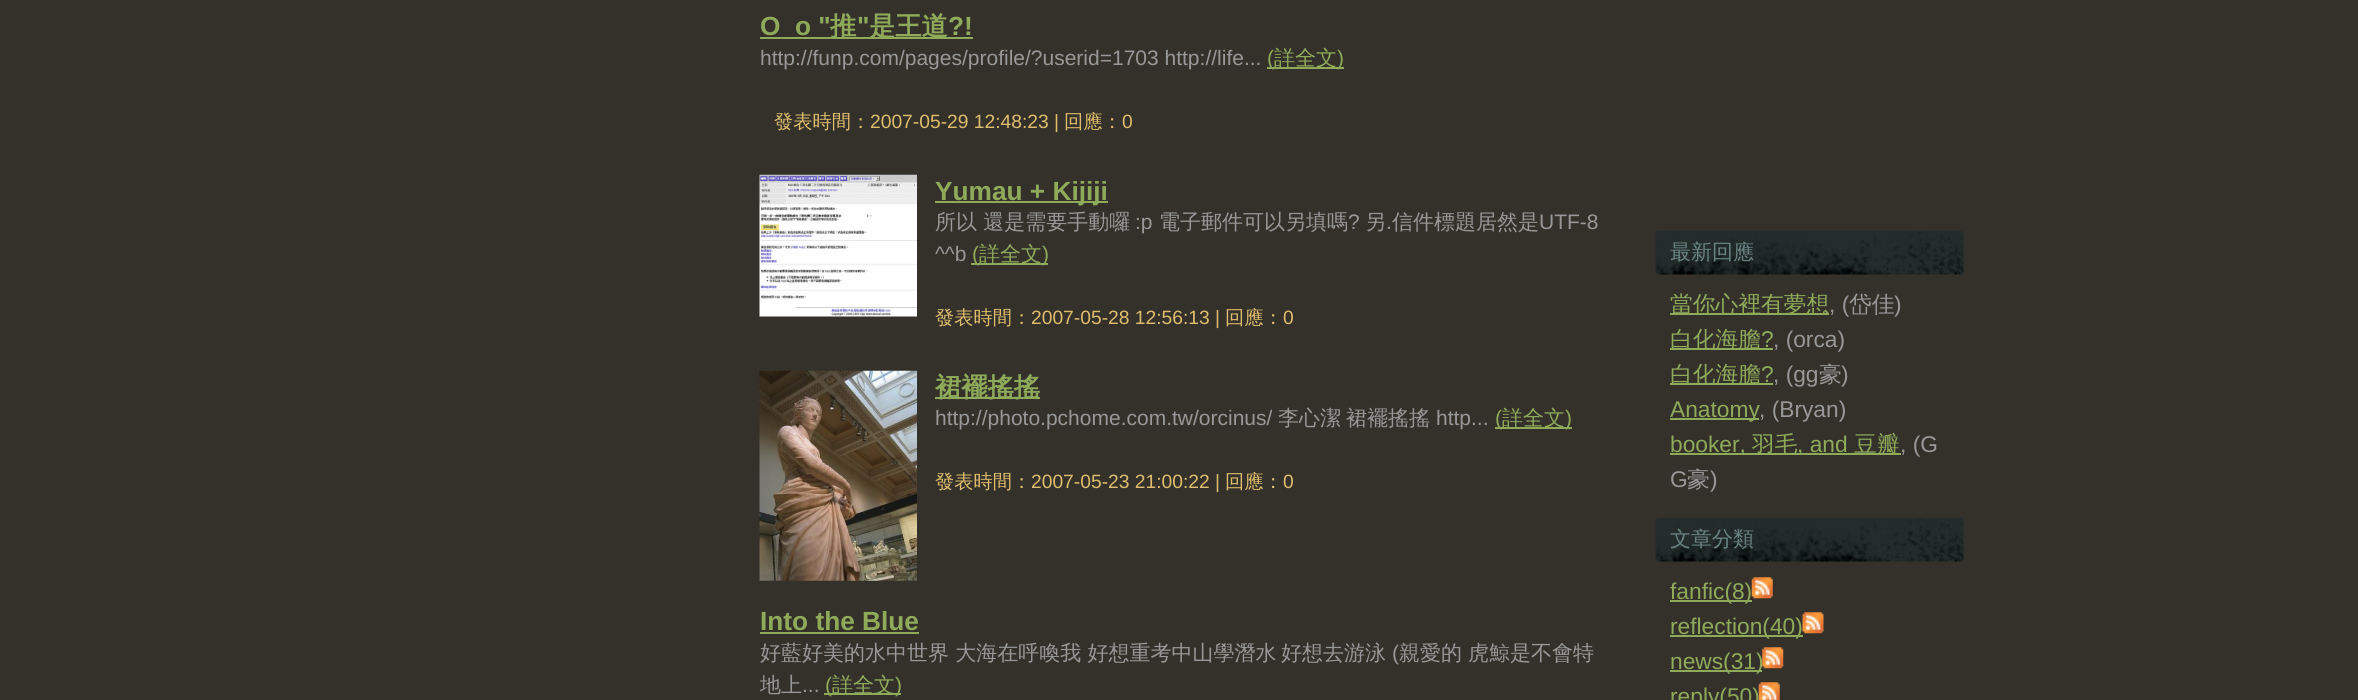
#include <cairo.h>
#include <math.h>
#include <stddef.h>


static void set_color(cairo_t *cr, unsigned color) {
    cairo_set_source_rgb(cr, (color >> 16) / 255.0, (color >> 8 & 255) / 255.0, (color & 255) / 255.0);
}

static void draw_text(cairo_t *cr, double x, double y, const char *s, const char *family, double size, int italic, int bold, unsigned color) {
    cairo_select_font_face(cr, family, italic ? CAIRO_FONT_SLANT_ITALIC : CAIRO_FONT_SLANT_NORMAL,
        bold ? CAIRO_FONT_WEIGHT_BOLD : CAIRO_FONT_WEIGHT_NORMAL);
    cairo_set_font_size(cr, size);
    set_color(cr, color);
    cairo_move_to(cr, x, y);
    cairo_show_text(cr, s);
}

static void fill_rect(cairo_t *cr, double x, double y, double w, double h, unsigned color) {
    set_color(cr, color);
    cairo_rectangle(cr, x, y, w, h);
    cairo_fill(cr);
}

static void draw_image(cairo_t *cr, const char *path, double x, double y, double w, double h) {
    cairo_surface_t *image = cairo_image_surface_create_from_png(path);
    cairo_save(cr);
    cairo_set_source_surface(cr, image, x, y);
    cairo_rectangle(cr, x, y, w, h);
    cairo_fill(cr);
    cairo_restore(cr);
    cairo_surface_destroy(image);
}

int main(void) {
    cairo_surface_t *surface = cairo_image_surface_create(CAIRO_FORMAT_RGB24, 2358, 700);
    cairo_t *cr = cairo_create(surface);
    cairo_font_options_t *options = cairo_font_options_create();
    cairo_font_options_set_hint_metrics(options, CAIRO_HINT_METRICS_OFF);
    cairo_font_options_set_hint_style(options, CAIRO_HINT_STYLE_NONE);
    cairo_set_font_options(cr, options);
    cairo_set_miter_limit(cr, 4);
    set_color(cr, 0x34312B);
    cairo_paint(cr);
    fill_rect(cr, 760, 37, 213, 2, 0x8FAB5A);
    draw_text(cr, 760, 35, "O_o \"", "Liberation Sans", 26.25, 0, 1, 0x8FAB5A);
    draw_text(cr, 830, 35, "推", "WenQuanYi Zen Hei", 26.25, 0, 1, 0x8FAB5A);
    draw_text(cr, 857, 35, "\"", "Liberation Sans", 26.25, 0, 1, 0x8FAB5A);
    draw_text(cr, 869, 35, "是王道", "WenQuanYi Zen Hei", 26.25, 0, 1, 0x8FAB5A);
    draw_text(cr, 948, 35, "?!", "Liberation Sans", 26.25, 0, 1, 0x8FAB5A);
    draw_text(cr, 760, 65, "http://funp.com/pages/profile/?userid=1703 http://life...", "Liberation Sans", 21, 0, 0, 0x989898);
    fill_rect(cr, 1267, 67, 77, 2, 0x8FAB5A);
    draw_text(cr, 1267, 65, "(", "Liberation Sans", 21, 0, 0, 0x8FAB5A);
    draw_text(cr, 1274, 65, "詳全文", "WenQuanYi Zen Hei Medium", 21, 0, 0, 0x8FAB5A);
    draw_text(cr, 1337, 65, ")", "Liberation Sans", 21, 0, 0, 0x8FAB5A);
    draw_text(cr, 774, 128, "發表時間：", "WenQuanYi Zen Hei Medium", 19.25, 0, 0, 0xDFBD6C);
    draw_text(cr, 870, 128, "2007-05-29 12:48:23 |", "Liberation Sans", 19.25, 0, 0, 0xDFBD6C);
    draw_text(cr, 1064, 128, "回應：", "WenQuanYi Zen Hei Medium", 19.25, 0, 0, 0xDFBD6C);
    draw_text(cr, 1122, 128, "0", "Liberation Sans", 19.25, 0, 0, 0xDFBD6C);
    draw_image(cr, "assets/img1.png", 759, 174, 158, 143);
    fill_rect(cr, 935, 201, 173, 2, 0x8FAB5A);
    draw_text(cr, 935, 200, "Yumau + Kijiji", "Liberation Sans", 26.25, 0, 1, 0x8FAB5A);
    draw_text(cr, 935, 229, "所以 還是需要手動囉", "WenQuanYi Zen Hei Medium", 21, 0, 0, 0x989898);
    draw_text(cr, 1135, 229, ":p", "Liberation Sans", 21, 0, 0, 0x989898);
    draw_text(cr, 1159, 229, "電子郵件可以另填嗎", "WenQuanYi Zen Hei Medium", 21, 0, 0, 0x989898);
    draw_text(cr, 1348, 229, "?", "Liberation Sans", 21, 0, 0, 0x989898);
    draw_text(cr, 1365, 229, "另", "WenQuanYi Zen Hei Medium", 21, 0, 0, 0x989898);
    draw_text(cr, 1386, 229, ".", "Liberation Sans", 21, 0, 0, 0x989898);
    draw_text(cr, 1392, 229, "信件標題居然是", "WenQuanYi Zen Hei Medium", 21, 0, 0, 0x989898);
    draw_text(cr, 1539, 229, "UTF-8", "Liberation Sans", 21, 0, 0, 0x989898);
    draw_text(cr, 935, 261, "^^b", "Liberation Sans", 21, 0, 0, 0x989898);
    fill_rect(cr, 971, 263, 77, 2, 0x8FAB5A);
    draw_text(cr, 972, 261, "(", "Liberation Sans", 21, 0, 0, 0x8FAB5A);
    draw_text(cr, 979, 261, "詳全文", "WenQuanYi Zen Hei Medium", 21, 0, 0, 0x8FAB5A);
    draw_text(cr, 1042, 261, ")", "Liberation Sans", 21, 0, 0, 0x8FAB5A);
    draw_text(cr, 935, 324, "發表時間：", "WenQuanYi Zen Hei Medium", 19.25, 0, 0, 0xDFBD6C);
    draw_text(cr, 1031, 324, "2007-05-28 12:56:13 |", "Liberation Sans", 19.25, 0, 0, 0xDFBD6C);
    draw_text(cr, 1225, 324, "回應：", "WenQuanYi Zen Hei Medium", 19.25, 0, 0, 0xDFBD6C);
    draw_text(cr, 1283, 324, "0", "Liberation Sans", 19.25, 0, 0, 0xDFBD6C);
    draw_image(cr, "assets/img2.png", 759, 370, 158, 211);
    fill_rect(cr, 935, 397, 105, 2, 0x8FAB5A);
    draw_text(cr, 935, 396, "裙襬搖搖", "WenQuanYi Zen Hei", 26.25, 0, 1, 0x8FAB5A);
    draw_text(cr, 935, 425, "http://photo.pchome.com.tw/orcinus/", "Liberation Sans", 21, 0, 0, 0x989898);
    draw_text(cr, 1278, 425, "李心潔", "WenQuanYi Zen Hei Medium", 21, 0, 0, 0x989898);
    draw_text(cr, 1346, 425, "裙襬搖搖", "WenQuanYi Zen Hei Medium", 21, 0, 0, 0x989898);
    draw_text(cr, 1436, 425, "http...", "Liberation Sans", 21, 0, 0, 0x989898);
    fill_rect(cr, 1495, 427, 77, 2, 0x8FAB5A);
    draw_text(cr, 1495, 425, "(", "Liberation Sans", 21, 0, 0, 0x8FAB5A);
    draw_text(cr, 1502, 425, "詳全文", "WenQuanYi Zen Hei Medium", 21, 0, 0, 0x8FAB5A);
    draw_text(cr, 1565, 425, ")", "Liberation Sans", 21, 0, 0, 0x8FAB5A);
    draw_text(cr, 935, 488, "發表時間：", "WenQuanYi Zen Hei Medium", 19.25, 0, 0, 0xDFBD6C);
    draw_text(cr, 1031, 488, "2007-05-23 21:00:22 |", "Liberation Sans", 19.25, 0, 0, 0xDFBD6C);
    draw_text(cr, 1225, 488, "回應：", "WenQuanYi Zen Hei Medium", 19.25, 0, 0, 0xDFBD6C);
    draw_text(cr, 1283, 488, "0", "Liberation Sans", 19.25, 0, 0, 0xDFBD6C);
    draw_text(cr, 760, 630, "Into the Blue", "Liberation Sans", 26.25, 0, 1, 0x8FAB5A);
    fill_rect(cr, 760, 632, 159, 2, 0x8FAB5A);
    draw_text(cr, 760, 660, "好藍好美的水中世界 大海在呼喚我 好想重考中山學潛水", "WenQuanYi Zen Hei Medium", 21, 0, 0, 0x989898);
    draw_text(cr, 1281, 660, "好想去游泳", "WenQuanYi Zen Hei Medium", 21, 0, 0, 0x989898);
    draw_text(cr, 1392, 660, "(", "Liberation Sans", 21, 0, 0, 0x989898);
    draw_text(cr, 1399, 660, "親愛的", "WenQuanYi Zen Hei Medium", 21, 0, 0, 0x989898);
    draw_text(cr, 1468, 660, "虎鯨是不會特", "WenQuanYi Zen Hei Medium", 21, 0, 0, 0x989898);
    draw_text(cr, 760, 692, "地上", "WenQuanYi Zen Hei Medium", 21, 0, 0, 0x989898);
    draw_text(cr, 802, 692, "...", "Liberation Sans", 21, 0, 0, 0x989898);
    fill_rect(cr, 824, 693, 77, 2, 0x8FAB5A);
    draw_text(cr, 825, 692, "(", "Liberation Sans", 21, 0, 0, 0x8FAB5A);
    draw_text(cr, 832, 692, "詳全文", "WenQuanYi Zen Hei Medium", 21, 0, 0, 0x8FAB5A);
    draw_text(cr, 895, 692, ")", "Liberation Sans", 21, 0, 0, 0x8FAB5A);
    draw_image(cr, "assets/img3.png", 1655, 230, 309, 45);
    draw_text(cr, 1670, 259, "最新回應", "WenQuanYi Zen Hei Medium", 21, 0, 0, 0x6A8484);
    fill_rect(cr, 1670, 313, 159, 2, 0x8FAB5A);
    draw_text(cr, 1670, 312, "當你心裡有夢想", "WenQuanYi Zen Hei Medium", 22.75, 0, 0, 0x8FAB5A);
    draw_text(cr, 1829, 312, ", (", "Liberation Sans", 22.75, 0, 0, 0x989898);
    draw_text(cr, 1849, 312, "岱佳", "WenQuanYi Zen Hei Medium", 22.75, 0, 0, 0x989898);
    draw_text(cr, 1894, 312, ")", "Liberation Sans", 22.75, 0, 0, 0x989898);
    fill_rect(cr, 1670, 348, 103, 2, 0x8FAB5A);
    draw_text(cr, 1670, 347, "白化海膽", "WenQuanYi Zen Hei Medium", 22.75, 0, 0, 0x8FAB5A);
    draw_text(cr, 1761, 347, "?", "Liberation Sans", 22.75, 0, 0, 0x8FAB5A);
    draw_text(cr, 1773, 347, ", (orca)", "Liberation Sans", 22.75, 0, 0, 0x989898);
    fill_rect(cr, 1670, 383, 103, 2, 0x8FAB5A);
    draw_text(cr, 1670, 382, "白化海膽", "WenQuanYi Zen Hei Medium", 22.75, 0, 0, 0x8FAB5A);
    draw_text(cr, 1761, 382, "?", "Liberation Sans", 22.75, 0, 0, 0x8FAB5A);
    draw_text(cr, 1773, 382, ", (gg", "Liberation Sans", 22.75, 0, 0, 0x989898);
    draw_text(cr, 1819, 382, "豪", "WenQuanYi Zen Hei Medium", 22.75, 0, 0, 0x989898);
    draw_text(cr, 1841, 382, ")", "Liberation Sans", 22.75, 0, 0, 0x989898);
    fill_rect(cr, 1670, 418, 89, 2, 0x8FAB5A);
    draw_text(cr, 1670, 417, "Anatomy", "Liberation Sans", 22.75, 0, 0, 0x8FAB5A);
    draw_text(cr, 1759, 417, ", (Bryan)", "Liberation Sans", 22.75, 0, 0, 0x989898);
    fill_rect(cr, 1670, 453, 231, 2, 0x8FAB5A);
    draw_text(cr, 1670, 452, "booker,", "Liberation Sans", 22.75, 0, 0, 0x8FAB5A);
    draw_text(cr, 1752, 452, "羽毛", "WenQuanYi Zen Hei Medium", 22.75, 0, 0, 0x8FAB5A);
    draw_text(cr, 1797, 452, ", and", "Liberation Sans", 22.75, 0, 0, 0x8FAB5A);
    draw_text(cr, 1854, 452, "豆瓣", "WenQuanYi Zen Hei Medium", 22.75, 0, 0, 0x8FAB5A);
    draw_text(cr, 1900, 452, ", (G", "Liberation Sans", 22.75, 0, 0, 0x989898);
    draw_text(cr, 1670, 487, "G", "Liberation Sans", 22.75, 0, 0, 0x989898);
    draw_text(cr, 1687, 487, "豪", "WenQuanYi Zen Hei Medium", 22.75, 0, 0, 0x989898);
    draw_text(cr, 1710, 487, ")", "Liberation Sans", 22.75, 0, 0, 0x989898);
    draw_image(cr, "assets/img3.png", 1655, 517, 309, 45);
    draw_text(cr, 1670, 546, "文章分類", "WenQuanYi Zen Hei Medium", 21, 0, 0, 0x6A8484);
    fill_rect(cr, 1670, 600, 82, 2, 0x8FAB5A);
    draw_text(cr, 1670, 599, "fanfic(8)", "Liberation Sans", 22.75, 0, 0, 0x8FAB5A);
    draw_image(cr, "assets/img4.png", 1751, 577, 22, 22);
    fill_rect(cr, 1670, 635, 133, 2, 0x8FAB5A);
    draw_text(cr, 1670, 634, "reflection(40)", "Liberation Sans", 22.75, 0, 0, 0x8FAB5A);
    draw_image(cr, "assets/img5.png", 1802, 612, 22, 22);
    fill_rect(cr, 1670, 670, 92, 2, 0x8FAB5A);
    draw_text(cr, 1670, 669, "news(31)", "Liberation Sans", 22.75, 0, 0, 0x8FAB5A);
    draw_image(cr, "assets/img6.png", 1762, 647, 22, 22);
    draw_text(cr, 1670, 704, "reply(50)", "Liberation Sans", 22.75, 0, 0, 0x8FAB5A);
    draw_image(cr, "assets/img7.png", 1758, 682, 22, 18);
    cairo_surface_write_to_png(surface, "output.png");
    cairo_font_options_destroy(options);
    cairo_destroy(cr);
    cairo_surface_destroy(surface);
    return 0;
}
